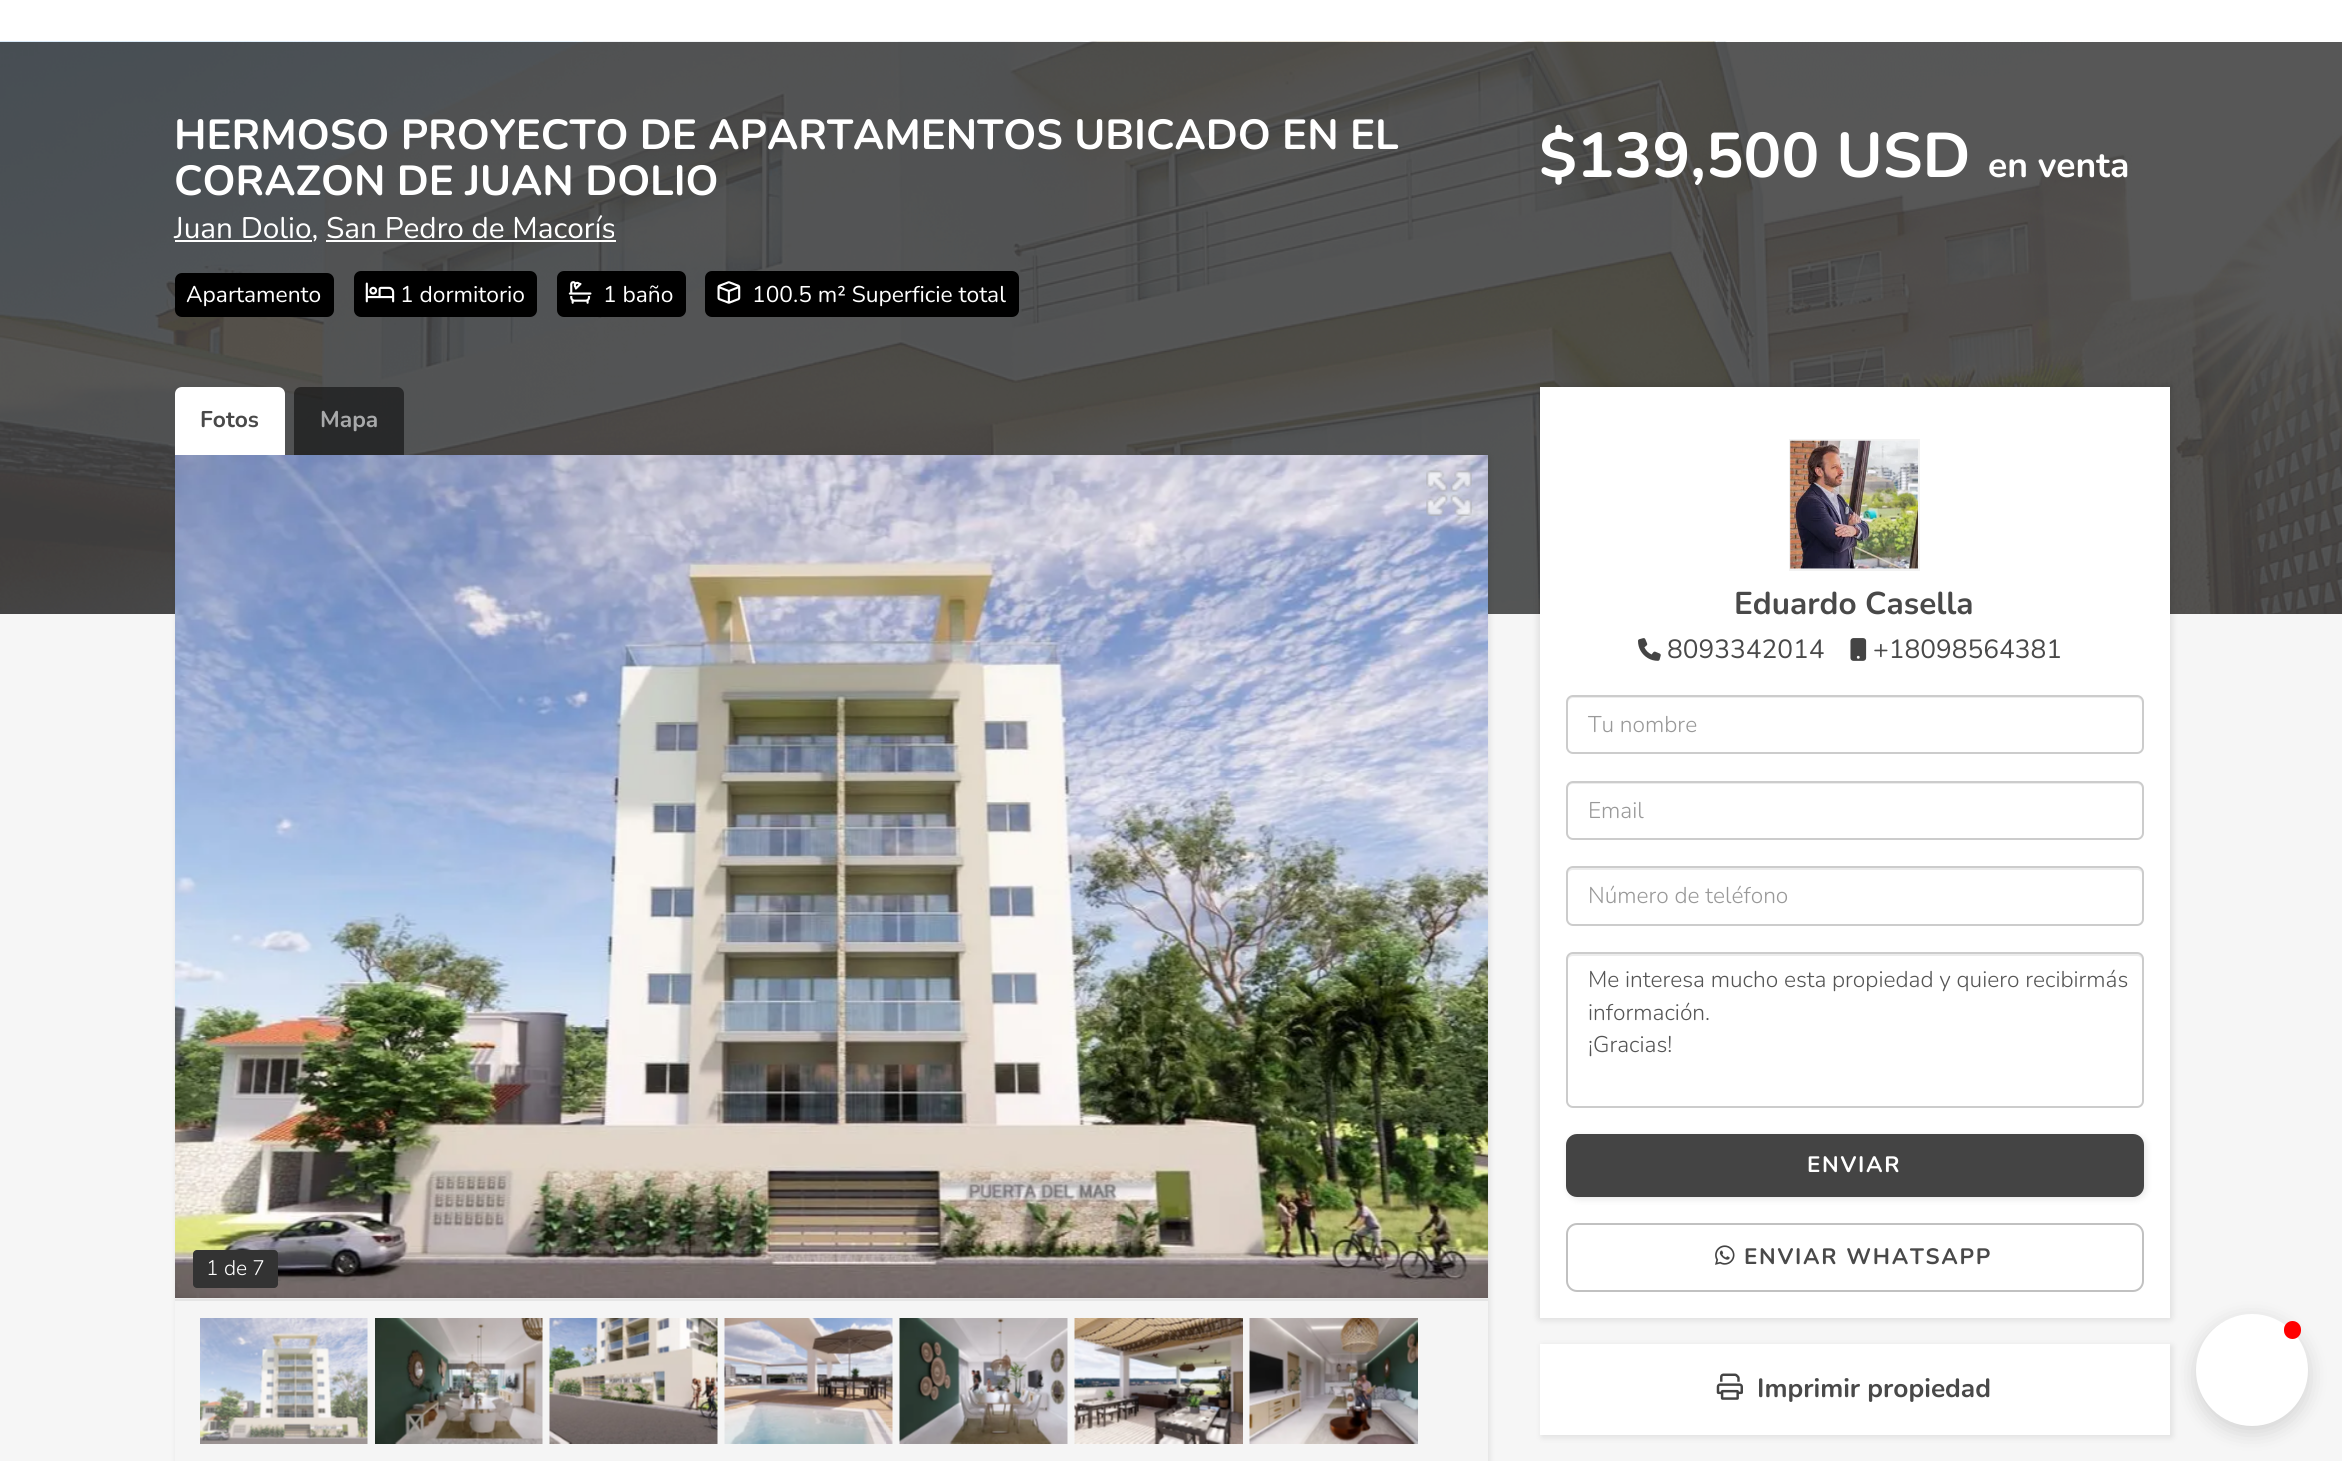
#include <cairo.h>
#include <math.h>
#include <stddef.h>


static void set_color(cairo_t *cr, unsigned color) {
    cairo_set_source_rgb(cr, (color >> 16) / 255.0, (color >> 8 & 255) / 255.0, (color & 255) / 255.0);
}

static void draw_text(cairo_t *cr, double x, double y, const char *s, const char *family, double size, int italic, int bold, unsigned color) {
    cairo_select_font_face(cr, family, italic ? CAIRO_FONT_SLANT_ITALIC : CAIRO_FONT_SLANT_NORMAL,
        bold ? CAIRO_FONT_WEIGHT_BOLD : CAIRO_FONT_WEIGHT_NORMAL);
    cairo_set_font_size(cr, size);
    set_color(cr, color);
    cairo_move_to(cr, x, y);
    cairo_show_text(cr, s);
}

static void draw_spaced(cairo_t *cr, double x, double y, const char *s, double letter, double word) {
    cairo_move_to(cr, x, y);
    while (*s) {
        char ch[5] = {0};
        int n = 0;
        do ch[n++] = *s++; while ((*s & 0xC0) == 0x80);
        cairo_show_text(cr, ch);
        cairo_rel_move_to(cr, letter + word * (*ch == ' '), 0);
    }
}

static void fill_rect(cairo_t *cr, double x, double y, double w, double h, unsigned color) {
    set_color(cr, color);
    cairo_rectangle(cr, x, y, w, h);
    cairo_fill(cr);
}

static void rounded_rect(cairo_t *cr, double x, double y, double w, double h, double r) {
    cairo_new_sub_path(cr);
    cairo_arc(cr, x + w - r, y + h - r, r, 0, M_PI / 2);
    cairo_arc(cr, x + r, y + h - r, r, M_PI / 2, M_PI);
    cairo_arc(cr, x + r, y + r, r, M_PI, 1.5 * M_PI);
    cairo_arc(cr, x + w - r, y + r, r, 1.5 * M_PI, 2 * M_PI);
    cairo_close_path(cr);
}

static void draw_shadow(cairo_t *cr, double x, double y, double w, double h, double r, double blur, double alpha) {
    cairo_push_group_with_content(cr, CAIRO_CONTENT_ALPHA);
    cairo_set_operator(cr, CAIRO_OPERATOR_SOURCE);
    for (int i = 15; i >= -15 && fmin(w, h) + blur * i / 3 > 0; i -= 2) {
        double e = blur * i / 6;
        cairo_set_source_rgba(cr, 0, 0, 0, alpha * erfc((i - 1) / 8.5) / 2);
        rounded_rect(cr, x - e, y - e, w + 2 * e, h + 2 * e, fmax(0, fmin(r + e + blur * .6, fmin(w, h) / 2 + e)));
        cairo_fill(cr);
    }
    cairo_pattern_t *soft = cairo_pop_group(cr);
    cairo_mask(cr, soft);
    cairo_pattern_destroy(soft);
}

static void draw_image(cairo_t *cr, const char *path, double x, double y, double w, double h) {
    cairo_surface_t *image = cairo_image_surface_create_from_png(path);
    cairo_save(cr);
    cairo_set_source_surface(cr, image, x, y);
    cairo_rectangle(cr, x, y, w, h);
    cairo_fill(cr);
    cairo_restore(cr);
    cairo_surface_destroy(image);
}

int main(void) {
    cairo_surface_t *surface = cairo_image_surface_create(CAIRO_FORMAT_RGB24, 2342, 1461);
    cairo_t *cr = cairo_create(surface);
    cairo_font_options_t *options = cairo_font_options_create();
    cairo_font_options_set_hint_metrics(options, CAIRO_HINT_METRICS_OFF);
    cairo_font_options_set_hint_style(options, CAIRO_HINT_STYLE_NONE);
    cairo_set_font_options(cr, options);
    cairo_set_miter_limit(cr, 4);
    set_color(cr, 0xF6F6F6);
    cairo_paint(cr);
    fill_rect(cr, 0, 0, 2342, 42, 0xFFFFFF);
    draw_image(cr, "assets/img1.png", 0, 41, 2342, 573);
    draw_text(cr, 174, 149, "HERMOSO PROYECTO DE APARTAMENTOS UBICADO EN EL", "Nunito", 42, 0, 1, 0xFFFFFF);
    draw_text(cr, 174, 195, "CORAZON DE JUAN DOLIO", "Nunito", 42, 0, 1, 0xFFFFFF);
    fill_rect(cr, 175, 240, 137, 2, 0xFFFFFF);
    draw_text(cr, 174, 238, "Juan Dolio, San Pedro de Macorís", "Nunito", 29.75, 0, 0, 0xFFFFFF);
    fill_rect(cr, 326, 240, 290, 2, 0xFFFFFF);
    set_color(cr, 0x000000);
    rounded_rect(cr, 175, 273, 159, 44, 7);
    cairo_fill(cr);
    draw_text(cr, 186, 302, "Apartamento", "Nunito", 22.75, 0, 0, 0xFFFFFF);
    set_color(cr, 0x000000);
    rounded_rect(cr, 354, 271, 183, 46, 7);
    cairo_fill(cr);
    draw_image(cr, "assets/img2.png", 365, 282, 30, 21);
    draw_text(cr, 400, 302, "1 dormitorio", "Nunito", 22.75, 0, 0, 0xFFFFFF);
    set_color(cr, 0x000000);
    rounded_rect(cr, 557, 271, 129, 46, 7);
    cairo_fill(cr);
    draw_image(cr, "assets/img3.png", 568, 281, 24, 23);
    draw_text(cr, 603, 302, "1 baño", "Nunito", 22.75, 0, 0, 0xFFFFFF);
    set_color(cr, 0x000000);
    rounded_rect(cr, 705, 271, 314, 46, 7);
    cairo_fill(cr);
    draw_image(cr, "assets/img4.png", 717, 281, 24, 23);
    draw_text(cr, 752, 302, "100.5 m² Superficie total", "Nunito", 22.75, 0, 0, 0xFFFFFF);
    draw_text(cr, 1539, 177, "$139,500 USD", "Nunito", 63, 0, 1, 0xFFFFFF);
    draw_text(cr, 1988, 177, "en venta", "Nunito", 35.5, 0, 1, 0xFFFFFF);
    set_color(cr, 0x000000);
    draw_shadow(cr, 177, 457, 1312, 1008, 0, 3.5, 0.1);
    set_color(cr, 0xFFFFFF);
    cairo_new_path(cr);
    cairo_move_to(cr, 182, 387);
    cairo_line_to(cr, 278, 387);
    cairo_curve_to(cr, 282, 387, 285, 390, 285, 394);
    cairo_line_to(cr, 285, 455);
    cairo_line_to(cr, 175, 455);
    cairo_line_to(cr, 175, 394);
    cairo_curve_to(cr, 175, 390, 178, 387, 182, 387);
    cairo_close_path(cr);
    cairo_fill(cr);
    draw_text(cr, 200, 427, "Fotos", "Nunito", 22.75, 0, 1, 0x494949);
    cairo_set_source_rgba(cr, 0, 0, 0, 0.5);
    cairo_new_path(cr);
    cairo_move_to(cr, 301, 387);
    cairo_line_to(cr, 397, 387);
    cairo_curve_to(cr, 401, 387, 404, 390, 404, 394);
    cairo_line_to(cr, 404, 455);
    cairo_line_to(cr, 294, 455);
    cairo_line_to(cr, 294, 394);
    cairo_curve_to(cr, 294, 390, 297, 387, 301, 387);
    cairo_close_path(cr);
    cairo_fill(cr);
    draw_text(cr, 320, 427, "Mapa", "Nunito", 22.75, 0, 1, 0xA8A9AA);
    fill_rect(cr, 175, 1298, 1313, 1, 0xFFFFFF);
    draw_image(cr, "assets/img5.png", 175, 455, 1313, 843);
    draw_image(cr, "assets/img6.png", 1426, 470, 46, 46);
    set_color(cr, 0x333333);
    rounded_rect(cr, 193, 1250, 85, 38, 4);
    cairo_fill(cr);
    draw_text(cr, 206, 1275, "1 de 7", "Nunito Light", 21, 0, 0, 0xFFFFFF);
    cairo_save(cr);
    cairo_rectangle(cr, 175, 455, 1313, 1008);
    cairo_clip(cr);
    set_color(cr, 0x000000);
    draw_shadow(cr, 175, 1299, 1313, 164, 0, 3.5, 0.15);
    cairo_restore(cr);
    fill_rect(cr, 175, 1301, 1313, 160, 0xF5F5F5);
    fill_rect(cr, 175, 1299, 1313, 2, 0xE5E5E5);
    draw_image(cr, "assets/img7.png", 200, 1318, 168, 126);
    draw_image(cr, "assets/img8.png", 375, 1318, 168, 126);
    draw_image(cr, "assets/img9.png", 549, 1318, 169, 126);
    draw_image(cr, "assets/img10.png", 724, 1318, 169, 126);
    draw_image(cr, "assets/img11.png", 899, 1318, 169, 126);
    draw_image(cr, "assets/img12.png", 1074, 1318, 169, 126);
    draw_image(cr, "assets/img13.png", 1249, 1318, 169, 126);
    set_color(cr, 0x000000);
    draw_shadow(cr, 1540, 387, 630, 931, 0, 4.5, 0.15);
    fill_rect(cr, 1540, 387, 630, 931, 0xFFFFFF);
    cairo_rectangle(cr, 1790, 440, 129, 130);
    set_color(cr, 0xF2F2F2);
    cairo_stroke(cr);
    draw_image(cr, "assets/img14.png", 1790, 440, 128, 129);
    draw_text(cr, 1734, 614, "Eduardo Casella", "Nunito", 31.5, 0, 1, 0x494949);
    draw_image(cr, "assets/img15.png", 1638, 638, 23, 23);
    draw_text(cr, 1667, 658, "8093342014", "Nunito", 26.25, 0, 0, 0x494949);
    draw_image(cr, "assets/img16.png", 1850, 638, 17, 23);
    draw_text(cr, 1873, 658, "+18098564381", "Nunito", 26.25, 0, 0, 0x494949);
    set_color(cr, 0xECECEC);
    cairo_new_path(cr);
    cairo_move_to(cr, 1573, 698);
    cairo_line_to(cr, 2137, 698);
    cairo_curve_to(cr, 2140, 698, 2142, 701, 2142, 704);
    cairo_line_to(cr, 2142, 702);
    cairo_curve_to(cr, 2142, 699, 2140, 697, 2137, 697);
    cairo_line_to(cr, 1573, 697);
    cairo_curve_to(cr, 1570, 697, 1568, 699, 1568, 702);
    cairo_line_to(cr, 1568, 704);
    cairo_curve_to(cr, 1568, 701, 1570, 698, 1573, 698);
    cairo_close_path(cr);
    cairo_fill(cr);
    rounded_rect(cr, 1567, 696, 576, 57, 6);
    set_color(cr, 0xCCCCCC);
    cairo_stroke(cr);
    draw_text(cr, 1588, 732, "Tu nombre", "Nunito Light", 22.75, 0, 0, 0x999999);
    set_color(cr, 0xECECEC);
    cairo_new_path(cr);
    cairo_move_to(cr, 1573, 784);
    cairo_line_to(cr, 2137, 784);
    cairo_curve_to(cr, 2140, 784, 2142, 786, 2142, 789);
    cairo_line_to(cr, 2142, 787);
    cairo_curve_to(cr, 2142, 784, 2140, 782, 2137, 782);
    cairo_line_to(cr, 1573, 782);
    cairo_curve_to(cr, 1570, 782, 1568, 784, 1568, 787);
    cairo_line_to(cr, 1568, 789);
    cairo_curve_to(cr, 1568, 786, 1570, 784, 1573, 784);
    cairo_close_path(cr);
    cairo_fill(cr);
    rounded_rect(cr, 1567, 782, 576, 57, 6);
    set_color(cr, 0xCCCCCC);
    cairo_stroke(cr);
    draw_text(cr, 1588, 818, "Email", "Nunito Light", 22.75, 0, 0, 0x999999);
    set_color(cr, 0xECECEC);
    cairo_new_path(cr);
    cairo_move_to(cr, 1573, 870);
    cairo_line_to(cr, 2137, 870);
    cairo_curve_to(cr, 2140, 870, 2142, 872, 2142, 875);
    cairo_line_to(cr, 2142, 873);
    cairo_curve_to(cr, 2142, 870, 2140, 868, 2137, 868);
    cairo_line_to(cr, 1573, 868);
    cairo_curve_to(cr, 1570, 868, 1568, 870, 1568, 873);
    cairo_line_to(cr, 1568, 875);
    cairo_curve_to(cr, 1568, 872, 1570, 870, 1573, 870);
    cairo_close_path(cr);
    cairo_fill(cr);
    rounded_rect(cr, 1567, 867, 576, 58, 6);
    set_color(cr, 0xCCCCCC);
    cairo_stroke(cr);
    draw_text(cr, 1588, 903, "Número de teléfono", "Nunito Light", 22.75, 0, 0, 0x999999);
    set_color(cr, 0xECECEC);
    cairo_new_path(cr);
    cairo_move_to(cr, 1573, 956);
    cairo_line_to(cr, 2137, 956);
    cairo_curve_to(cr, 2140, 956, 2142, 958, 2142, 961);
    cairo_line_to(cr, 2142, 959);
    cairo_curve_to(cr, 2142, 956, 2140, 954, 2137, 954);
    cairo_line_to(cr, 1573, 954);
    cairo_curve_to(cr, 1570, 954, 1568, 956, 1568, 959);
    cairo_line_to(cr, 1568, 961);
    cairo_curve_to(cr, 1568, 958, 1570, 956, 1573, 956);
    cairo_close_path(cr);
    cairo_fill(cr);
    rounded_rect(cr, 1567, 953, 576, 154, 6);
    set_color(cr, 0xCCCCCC);
    cairo_stroke(cr);
    draw_text(cr, 1588, 987, "Me interesa mucho esta propiedad y quiero recibirmás", "Nunito Light", 22.75, 0, 0, 0x555555);
    draw_text(cr, 1588, 1020, "información.", "Nunito Light", 22.75, 0, 0, 0x555555);
    draw_text(cr, 1588, 1052, "¡Gracias!", "Nunito Light", 22.75, 0, 0, 0x555555);
    set_color(cr, 0x000000);
    draw_shadow(cr, 1568, 1136, 578, 63, 11, 3.5, 0.1);
    set_color(cr, 0x444444);
    rounded_rect(cr, 1566, 1134, 578, 63, 11);
    cairo_fill(cr);
    cairo_select_font_face(cr, "Nunito", CAIRO_FONT_SLANT_NORMAL, CAIRO_FONT_WEIGHT_BOLD);
    cairo_set_font_size(cr, 22.25);
    set_color(cr, 0xFFFFFF);
    draw_spaced(cr, 1807, 1172, "ENVIAR", 1.75, 0);
    rounded_rect(cr, 1567, 1224, 576, 67, 10);
    set_color(cr, 0xC1C1C1);
    cairo_stroke(cr);
    draw_image(cr, "assets/img17.png", 1715, 1245, 20, 20);
    set_color(cr, 0x494949);
    draw_spaced(cr, 1744, 1264, "ENVIAR WHATSAPP", 1.75, 0);
    set_color(cr, 0x000000);
    draw_shadow(cr, 1542, 1346, 630, 91, 0, 3.5, 0.1);
    fill_rect(cr, 1540, 1344, 630, 91, 0xFFFFFF);
    draw_image(cr, "assets/img18.png", 1716, 1373, 27, 27);
    draw_text(cr, 1757, 1397, "Imprimir propiedad", "Nunito", 26.25, 0, 1, 0x494949);
    set_color(cr, 0x000000);
    draw_shadow(cr, 2196, 1320, 112, 112, 56, 10.5, 0.15);
    set_color(cr, 0xFFFFFF);
    cairo_arc(cr, 2252, 1370, 56, 0, 2 * M_PI);
    cairo_fill(cr);
    set_color(cr, 0xFF0000);
    rounded_rect(cr, 2284, 1321, 17, 18, 8.5);
    cairo_fill(cr);
    cairo_surface_write_to_png(surface, "output.png");
    cairo_font_options_destroy(options);
    cairo_destroy(cr);
    cairo_surface_destroy(surface);
    return 0;
}
